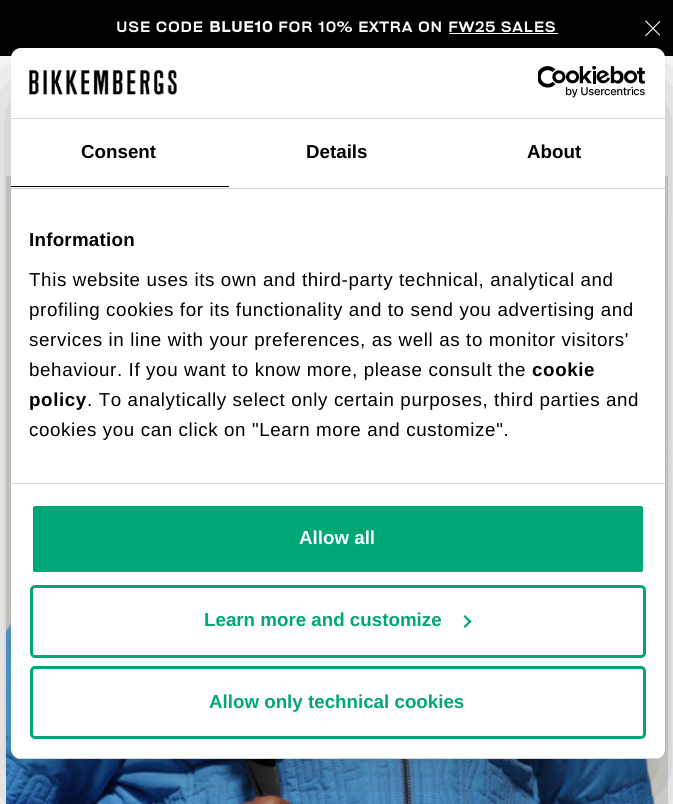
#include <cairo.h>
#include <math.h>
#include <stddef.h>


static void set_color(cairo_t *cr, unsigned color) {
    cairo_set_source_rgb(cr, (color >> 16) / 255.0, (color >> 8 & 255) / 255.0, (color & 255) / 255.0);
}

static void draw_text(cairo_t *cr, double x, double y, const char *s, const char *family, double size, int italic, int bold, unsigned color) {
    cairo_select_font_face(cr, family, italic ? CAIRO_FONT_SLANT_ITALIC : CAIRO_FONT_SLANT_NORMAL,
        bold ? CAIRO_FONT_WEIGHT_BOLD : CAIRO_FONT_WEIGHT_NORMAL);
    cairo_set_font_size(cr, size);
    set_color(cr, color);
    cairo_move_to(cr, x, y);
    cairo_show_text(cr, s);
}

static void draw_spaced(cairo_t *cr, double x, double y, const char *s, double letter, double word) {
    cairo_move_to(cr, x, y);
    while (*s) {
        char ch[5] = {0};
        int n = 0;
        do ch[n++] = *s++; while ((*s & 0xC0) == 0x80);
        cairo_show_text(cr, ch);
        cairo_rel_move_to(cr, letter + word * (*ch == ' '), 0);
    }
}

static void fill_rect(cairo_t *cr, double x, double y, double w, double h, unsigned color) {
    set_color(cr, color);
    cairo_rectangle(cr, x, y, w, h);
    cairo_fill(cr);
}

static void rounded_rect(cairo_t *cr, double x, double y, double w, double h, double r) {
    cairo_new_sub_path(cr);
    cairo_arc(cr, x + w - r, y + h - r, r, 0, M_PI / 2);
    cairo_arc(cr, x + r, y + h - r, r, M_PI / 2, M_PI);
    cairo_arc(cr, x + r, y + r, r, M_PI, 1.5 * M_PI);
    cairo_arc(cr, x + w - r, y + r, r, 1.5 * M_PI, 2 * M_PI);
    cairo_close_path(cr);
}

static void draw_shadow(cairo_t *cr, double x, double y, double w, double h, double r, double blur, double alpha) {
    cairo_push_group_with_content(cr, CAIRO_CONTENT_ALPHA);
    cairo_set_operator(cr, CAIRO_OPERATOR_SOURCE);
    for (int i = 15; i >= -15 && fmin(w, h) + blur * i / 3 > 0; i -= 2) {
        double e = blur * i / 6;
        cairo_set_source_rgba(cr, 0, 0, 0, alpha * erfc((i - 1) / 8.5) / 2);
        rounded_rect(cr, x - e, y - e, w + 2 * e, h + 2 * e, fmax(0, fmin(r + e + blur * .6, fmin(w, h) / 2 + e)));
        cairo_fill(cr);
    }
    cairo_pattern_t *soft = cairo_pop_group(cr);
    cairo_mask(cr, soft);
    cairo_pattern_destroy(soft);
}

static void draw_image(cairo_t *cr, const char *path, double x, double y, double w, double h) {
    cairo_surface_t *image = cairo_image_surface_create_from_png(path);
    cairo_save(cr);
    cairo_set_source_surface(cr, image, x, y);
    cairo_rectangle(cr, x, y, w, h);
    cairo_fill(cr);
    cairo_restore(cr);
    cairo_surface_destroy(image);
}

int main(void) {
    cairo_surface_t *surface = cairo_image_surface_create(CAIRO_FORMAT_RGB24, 673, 804);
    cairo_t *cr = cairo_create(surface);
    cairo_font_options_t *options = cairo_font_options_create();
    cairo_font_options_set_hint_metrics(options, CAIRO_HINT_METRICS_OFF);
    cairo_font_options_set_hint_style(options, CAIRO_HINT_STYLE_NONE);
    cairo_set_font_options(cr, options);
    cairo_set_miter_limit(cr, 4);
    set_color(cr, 0xFFFFFF);
    cairo_paint(cr);
    fill_rect(cr, 0, 0, 673, 56, 0x000000);
    cairo_select_font_face(cr, "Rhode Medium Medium", CAIRO_FONT_SLANT_NORMAL, CAIRO_FONT_WEIGHT_NORMAL);
    cairo_set_font_size(cr, 13.25);
    set_color(cr, 0xFFFFFF);
    draw_spaced(cr, 116, 32, "USE CODE", 0.65, 0);
    cairo_select_font_face(cr, "Rhode Medium", CAIRO_FONT_SLANT_NORMAL, CAIRO_FONT_WEIGHT_BOLD);
    draw_spaced(cr, 209, 32, "BLUE10", 0.65, 0);
    cairo_select_font_face(cr, "Rhode Medium Medium", CAIRO_FONT_SLANT_NORMAL, CAIRO_FONT_WEIGHT_NORMAL);
    draw_spaced(cr, 278, 32, "FOR 10% EXTRA ON FW25 SALES", 0.65, 0);
    fill_rect(cr, 449, 33, 109, 1, 0xFFFFFF);
    draw_image(cr, "assets/img1.png", 645, 20, 15, 16);
    draw_image(cr, "assets/img2.png", 6, 176, 660, 628);
    draw_image(cr, "assets/img3.png", 666, 176, 2, 628);
    set_color(cr, 0x000000);
    draw_shadow(cr, 11, 88, 654, 711, 10, 42.5, 0.3);
    set_color(cr, 0xFFFFFF);
    rounded_rect(cr, 11, 48, 654, 711, 10);
    cairo_fill(cr);
    fill_rect(cr, 11, 118, 654, 1, 0xD6D6D6);
    draw_image(cr, "assets/img4.png", 29, 70, 148, 25);
    draw_image(cr, "assets/img5.png", 538, 66, 108, 32);
    fill_rect(cr, 11, 188, 654, 1, 0xD6D6D6);
    fill_rect(cr, 11, 186, 218, 1, 0x000000);
    draw_text(cr, 81, 158, "Consent", "Liberation Sans", 18.75, 0, 1, 0x000000);
    draw_text(cr, 306, 158, "Details", "Liberation Sans", 18.75, 0, 1, 0x000000);
    draw_text(cr, 527, 158, "About", "Liberation Sans", 18.75, 0, 1, 0x000000);
    fill_rect(cr, 11, 483, 654, 1, 0xD6D6D6);
    set_color(cr, 0x000000);
    draw_spaced(cr, 29, 246, "Information", 0.25, 0);
    cairo_select_font_face(cr, "Liberation Sans", CAIRO_FONT_SLANT_NORMAL, CAIRO_FONT_WEIGHT_NORMAL);
    draw_spaced(cr, 29, 286, "This website uses its own and third-party technical, analytical and", 0.62, 0);
    draw_spaced(cr, 29, 316, "profiling cookies for its functionality and to send you advertising and", 0.62, 0);
    draw_spaced(cr, 29, 346, "services in line with your preferences, as well as to monitor visitors'", 0.62, 0);
    draw_spaced(cr, 29, 376, "behaviour. If you want to know more, please consult the", 0.62, 0);
    cairo_select_font_face(cr, "Liberation Sans", CAIRO_FONT_SLANT_NORMAL, CAIRO_FONT_WEIGHT_BOLD);
    draw_spaced(cr, 532, 376, "cookie", 0.62, 0);
    draw_spaced(cr, 29, 406, "policy", 0.62, 0);
    cairo_select_font_face(cr, "Liberation Sans", CAIRO_FONT_SLANT_NORMAL, CAIRO_FONT_WEIGHT_NORMAL);
    draw_spaced(cr, 87, 406, ". To analytically select only certain purposes, third parties and", 0.62, 0);
    draw_spaced(cr, 29, 436, "cookies you can click on \"Learn more and customize\".", 0.62, 0);
    cairo_save(cr);
    rounded_rect(cr, 11, 48, 654, 711, 10);
    cairo_clip(cr);
    fill_rect(cr, 11, 758, 654, 1, 0xD6D6D6);
    cairo_restore(cr);
    set_color(cr, 0x00A776);
    rounded_rect(cr, 31.5, 504.5, 613, 69, 3.5);
    cairo_fill_preserve(cr);
    set_color(cr, 0xFFFFFF);
    cairo_set_line_width(cr, 3);
    cairo_stroke(cr);
    draw_text(cr, 299, 544, "Allow all", "Liberation Sans", 18.75, 0, 1, 0xFFFFFF);
    rounded_rect(cr, 31.5, 586.5, 613, 70, 3.5);
    set_color(cr, 0x00A776);
    cairo_stroke(cr);
    draw_text(cr, 204, 626, "Learn more and customize", "Liberation Sans", 18.75, 0, 1, 0x00A776);
    cairo_new_path(cr);
    cairo_move_to(cr, 465, 615);
    cairo_line_to(cr, 471.5, 621.5);
    cairo_line_to(cr, 470, 623.5);
    cairo_line_to(cr, 463.5, 616.5);
    cairo_close_path(cr);
    cairo_fill(cr);
    cairo_new_path(cr);
    cairo_move_to(cr, 470, 620);
    cairo_line_to(cr, 471.5, 621.5);
    cairo_line_to(cr, 465, 628);
    cairo_line_to(cr, 463.5, 626.5);
    cairo_close_path(cr);
    cairo_fill(cr);
    rounded_rect(cr, 31.5, 667.5, 613, 70, 3.5);
    cairo_stroke(cr);
    draw_text(cr, 209, 708, "Allow only technical cookies", "Liberation Sans", 18.75, 0, 1, 0x00A776);
    cairo_surface_write_to_png(surface, "output.png");
    cairo_font_options_destroy(options);
    cairo_destroy(cr);
    cairo_surface_destroy(surface);
    return 0;
}
